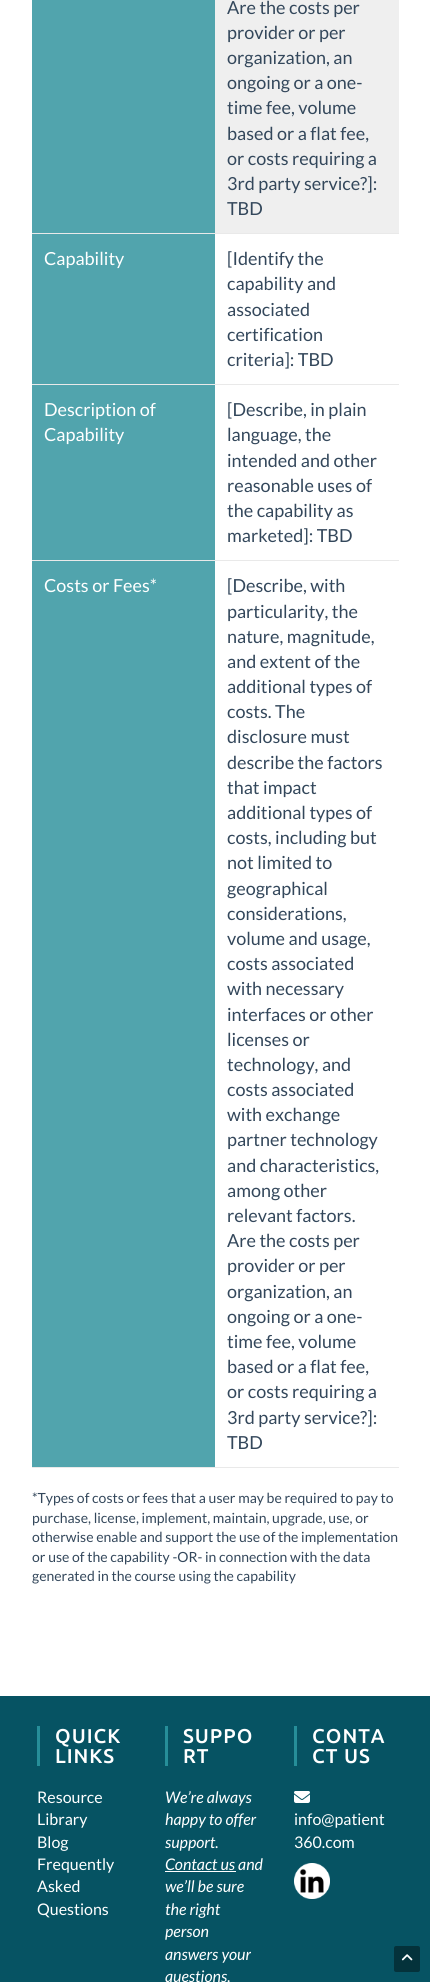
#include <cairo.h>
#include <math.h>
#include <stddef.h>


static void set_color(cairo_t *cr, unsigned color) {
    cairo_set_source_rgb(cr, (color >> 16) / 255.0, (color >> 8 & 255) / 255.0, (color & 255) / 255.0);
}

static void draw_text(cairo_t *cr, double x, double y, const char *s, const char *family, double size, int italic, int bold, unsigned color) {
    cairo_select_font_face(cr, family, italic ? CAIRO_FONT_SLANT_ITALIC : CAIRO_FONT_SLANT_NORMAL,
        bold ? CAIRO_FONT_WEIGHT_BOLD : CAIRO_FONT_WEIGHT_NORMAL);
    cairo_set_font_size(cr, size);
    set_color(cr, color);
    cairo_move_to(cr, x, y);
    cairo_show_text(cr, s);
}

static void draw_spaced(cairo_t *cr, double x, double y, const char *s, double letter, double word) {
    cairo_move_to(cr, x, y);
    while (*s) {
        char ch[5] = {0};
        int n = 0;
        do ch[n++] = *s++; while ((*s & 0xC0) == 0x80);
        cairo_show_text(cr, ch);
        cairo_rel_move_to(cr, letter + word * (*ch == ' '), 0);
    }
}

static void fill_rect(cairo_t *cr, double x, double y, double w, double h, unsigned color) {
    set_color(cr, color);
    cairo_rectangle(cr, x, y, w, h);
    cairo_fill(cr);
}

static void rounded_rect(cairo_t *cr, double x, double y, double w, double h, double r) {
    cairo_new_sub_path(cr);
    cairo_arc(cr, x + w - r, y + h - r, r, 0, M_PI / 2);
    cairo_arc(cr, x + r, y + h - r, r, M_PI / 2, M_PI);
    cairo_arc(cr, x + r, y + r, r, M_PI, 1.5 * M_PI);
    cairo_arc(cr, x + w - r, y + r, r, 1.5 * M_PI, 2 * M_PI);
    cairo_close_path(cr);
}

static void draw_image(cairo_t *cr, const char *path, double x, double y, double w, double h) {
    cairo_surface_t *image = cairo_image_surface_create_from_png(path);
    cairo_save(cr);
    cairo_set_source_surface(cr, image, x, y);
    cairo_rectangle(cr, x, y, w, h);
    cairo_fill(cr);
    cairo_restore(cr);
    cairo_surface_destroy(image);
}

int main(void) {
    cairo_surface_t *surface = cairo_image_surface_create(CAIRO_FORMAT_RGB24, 430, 1982);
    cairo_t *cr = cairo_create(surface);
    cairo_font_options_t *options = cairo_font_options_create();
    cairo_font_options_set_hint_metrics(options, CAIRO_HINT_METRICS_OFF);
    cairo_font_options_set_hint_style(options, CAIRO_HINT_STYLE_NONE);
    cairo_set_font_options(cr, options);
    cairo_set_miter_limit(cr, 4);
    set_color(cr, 0xFFFFFF);
    cairo_paint(cr);
    fill_rect(cr, 215, 0, 184, 233, 0xEFEFEF);
    fill_rect(cr, 32, 233, 367, 1, 0xE9E9E9);
    fill_rect(cr, 32, 0, 183, 233, 0x51A4AD);
    draw_text(cr, 227, 14, "Are the costs per", "Lato", 18, 0, 0, 0x33475B);
    draw_text(cr, 227, 39, "provider or per", "Lato", 18, 0, 0, 0x33475B);
    draw_text(cr, 227, 64, "organization, an", "Lato", 18, 0, 0, 0x33475B);
    draw_text(cr, 227, 89, "ongoing or a one-", "Lato", 18, 0, 0, 0x33475B);
    draw_text(cr, 227, 114, "time fee, volume", "Lato", 18, 0, 0, 0x33475B);
    draw_text(cr, 227, 140, "based or a flat fee,", "Lato", 18, 0, 0, 0x33475B);
    draw_text(cr, 227, 165, "or costs requiring a", "Lato", 18, 0, 0, 0x33475B);
    draw_text(cr, 227, 190, "3rd party service?]:", "Lato", 18, 0, 0, 0x33475B);
    draw_text(cr, 227, 215, "TBD", "Lato", 18, 0, 0, 0x33475B);
    fill_rect(cr, 32, 384, 367, 1, 0xE9E9E9);
    fill_rect(cr, 32, 234, 183, 150, 0x51A4AD);
    draw_text(cr, 44, 265, "Capability", "Lato", 18, 0, 0, 0xFFFFFF);
    draw_text(cr, 227, 265, "[Identify the", "Lato", 18, 0, 0, 0x33475B);
    draw_text(cr, 227, 290, "capability and", "Lato", 18, 0, 0, 0x33475B);
    draw_text(cr, 227, 316, "associated", "Lato", 18, 0, 0, 0x33475B);
    draw_text(cr, 227, 341, "certification", "Lato", 18, 0, 0, 0x33475B);
    draw_text(cr, 227, 366, "criteria]: TBD", "Lato", 18, 0, 0, 0x33475B);
    fill_rect(cr, 32, 560, 367, 1, 0xE9E9E9);
    fill_rect(cr, 32, 385, 183, 175, 0x51A4AD);
    draw_text(cr, 44, 416, "Description of", "Lato", 18, 0, 0, 0xFFFFFF);
    draw_text(cr, 44, 441, "Capability", "Lato", 18, 0, 0, 0xFFFFFF);
    draw_text(cr, 227, 416, "[Describe, in plain", "Lato", 18, 0, 0, 0x33475B);
    draw_text(cr, 227, 441, "language, the", "Lato", 18, 0, 0, 0x33475B);
    draw_text(cr, 227, 467, "intended and other", "Lato", 18, 0, 0, 0x33475B);
    draw_text(cr, 227, 492, "reasonable uses of", "Lato", 18, 0, 0, 0x33475B);
    draw_text(cr, 227, 517, "the capability as", "Lato", 18, 0, 0, 0x33475B);
    draw_text(cr, 227, 542, "marketed]: TBD", "Lato", 18, 0, 0, 0x33475B);
    fill_rect(cr, 32, 1467, 367, 1, 0xE9E9E9);
    fill_rect(cr, 32, 561, 183, 906, 0x51A4AD);
    draw_text(cr, 44, 592, "Costs or Fees*", "Lato", 18, 0, 0, 0xFFFFFF);
    draw_text(cr, 227, 592, "[Describe, with", "Lato", 18, 0, 0, 0x33475B);
    draw_text(cr, 227, 618, "particularity, the", "Lato", 18, 0, 0, 0x33475B);
    draw_text(cr, 227, 643, "nature, magnitude,", "Lato", 18, 0, 0, 0x33475B);
    draw_text(cr, 227, 668, "and extent of the", "Lato", 18, 0, 0, 0x33475B);
    draw_text(cr, 227, 693, "additional types of", "Lato", 18, 0, 0, 0x33475B);
    draw_text(cr, 227, 718, "costs. The", "Lato", 18, 0, 0, 0x33475B);
    draw_text(cr, 227, 743, "disclosure must", "Lato", 18, 0, 0, 0x33475B);
    draw_text(cr, 227, 769, "describe the factors", "Lato", 18, 0, 0, 0x33475B);
    draw_text(cr, 227, 794, "that impact", "Lato", 18, 0, 0, 0x33475B);
    draw_text(cr, 227, 819, "additional types of", "Lato", 18, 0, 0, 0x33475B);
    draw_text(cr, 227, 844, "costs, including but", "Lato", 18, 0, 0, 0x33475B);
    draw_text(cr, 227, 869, "not limited to", "Lato", 18, 0, 0, 0x33475B);
    draw_text(cr, 227, 895, "geographical", "Lato", 18, 0, 0, 0x33475B);
    draw_text(cr, 227, 920, "considerations,", "Lato", 18, 0, 0, 0x33475B);
    draw_text(cr, 227, 945, "volume and usage,", "Lato", 18, 0, 0, 0x33475B);
    draw_text(cr, 227, 970, "costs associated", "Lato", 18, 0, 0, 0x33475B);
    draw_text(cr, 227, 995, "with necessary", "Lato", 18, 0, 0, 0x33475B);
    draw_text(cr, 227, 1021, "interfaces or other", "Lato", 18, 0, 0, 0x33475B);
    draw_text(cr, 227, 1046, "licenses or", "Lato", 18, 0, 0, 0x33475B);
    draw_text(cr, 227, 1071, "technology, and", "Lato", 18, 0, 0, 0x33475B);
    draw_text(cr, 227, 1096, "costs associated", "Lato", 18, 0, 0, 0x33475B);
    draw_text(cr, 227, 1121, "with exchange", "Lato", 18, 0, 0, 0x33475B);
    draw_text(cr, 227, 1146, "partner technology", "Lato", 18, 0, 0, 0x33475B);
    draw_text(cr, 227, 1172, "and characteristics,", "Lato", 18, 0, 0, 0x33475B);
    draw_text(cr, 227, 1197, "among other", "Lato", 18, 0, 0, 0x33475B);
    draw_text(cr, 227, 1222, "relevant factors.", "Lato", 18, 0, 0, 0x33475B);
    draw_text(cr, 227, 1247, "Are the costs per", "Lato", 18, 0, 0, 0x33475B);
    draw_text(cr, 227, 1272, "provider or per", "Lato", 18, 0, 0, 0x33475B);
    draw_text(cr, 227, 1298, "organization, an", "Lato", 18, 0, 0, 0x33475B);
    draw_text(cr, 227, 1323, "ongoing or a one-", "Lato", 18, 0, 0, 0x33475B);
    draw_text(cr, 227, 1348, "time fee, volume", "Lato", 18, 0, 0, 0x33475B);
    draw_text(cr, 227, 1373, "based or a flat fee,", "Lato", 18, 0, 0, 0x33475B);
    draw_text(cr, 227, 1398, "or costs requiring a", "Lato", 18, 0, 0, 0x33475B);
    draw_text(cr, 227, 1424, "3rd party service?]:", "Lato", 18, 0, 0, 0x33475B);
    draw_text(cr, 227, 1449, "TBD", "Lato", 18, 0, 0, 0x33475B);
    draw_text(cr, 32, 1503, "*Types of costs or fees that a user may be required to pay to", "Lato", 14, 0, 0, 0x33475B);
    draw_text(cr, 32, 1523, "purchase, license, implement, maintain, upgrade, use, or", "Lato", 14, 0, 0, 0x33475B);
    draw_text(cr, 32, 1542, "otherwise enable and support the use of the implementation", "Lato", 14, 0, 0, 0x33475B);
    draw_text(cr, 32, 1562, "or use of the capability -OR- in connection with the data", "Lato", 14, 0, 0, 0x33475B);
    draw_text(cr, 32, 1581, "generated in the course using the capability", "Lato", 14, 0, 0, 0x33475B);
    fill_rect(cr, 0, 1696, 430, 286, 0x065363);
    fill_rect(cr, 37, 1726, 3, 40, 0x268E99);
    cairo_select_font_face(cr, "Ubuntu Medium", CAIRO_FONT_SLANT_NORMAL, CAIRO_FONT_WEIGHT_NORMAL);
    cairo_set_font_size(cr, 20);
    set_color(cr, 0xFFFFFF);
    draw_spaced(cr, 55, 1743, "QUICK", 1, 0);
    draw_spaced(cr, 55, 1763, "LINKS", 1, 0);
    draw_text(cr, 37, 1803, "Resource", "Lato", 16, 0, 0, 0xFFFFFF);
    draw_text(cr, 37, 1825, "Library", "Lato", 16, 0, 0, 0xFFFFFF);
    draw_text(cr, 37, 1848, "Blog", "Lato", 16, 0, 0, 0xFFFFFF);
    draw_text(cr, 37, 1870, "Frequently", "Lato", 16, 0, 0, 0xFFFFFF);
    draw_text(cr, 37, 1892, "Asked", "Lato", 16, 0, 0, 0xFFFFFF);
    draw_text(cr, 37, 1915, "Questions", "Lato", 16, 0, 0, 0xFFFFFF);
    fill_rect(cr, 165, 1726, 3, 40, 0x268E99);
    cairo_select_font_face(cr, "Ubuntu Medium", CAIRO_FONT_SLANT_NORMAL, CAIRO_FONT_WEIGHT_NORMAL);
    cairo_set_font_size(cr, 20);
    set_color(cr, 0xFFFFFF);
    draw_spaced(cr, 183, 1743, "SUPPO", 1, 0);
    draw_spaced(cr, 183, 1763, "RT", 1, 0);
    draw_text(cr, 165, 1803, "We’re always", "Lato", 16, 1, 0, 0xFFFFFF);
    draw_text(cr, 165, 1825, "happy to offer", "Lato", 16, 1, 0, 0xFFFFFF);
    draw_text(cr, 165, 1848, "support.", "Lato", 16, 1, 0, 0xFFFFFF);
    draw_text(cr, 165, 1870, "Contact us and", "Lato", 16, 1, 0, 0xFFFFFF);
    fill_rect(cr, 165, 1871, 71, 1, 0xFFFFFF);
    draw_text(cr, 165, 1892, "we’ll be sure", "Lato", 16, 1, 0, 0xFFFFFF);
    draw_text(cr, 165, 1915, "the right", "Lato", 16, 1, 0, 0xFFFFFF);
    draw_text(cr, 165, 1937, "person", "Lato", 16, 1, 0, 0xFFFFFF);
    draw_text(cr, 165, 1960, "answers your", "Lato", 16, 1, 0, 0xFFFFFF);
    draw_text(cr, 165, 1982, "questions.", "Lato", 16, 1, 0, 0xFFFFFF);
    fill_rect(cr, 294, 1726, 3, 40, 0x268E99);
    cairo_select_font_face(cr, "Ubuntu Medium", CAIRO_FONT_SLANT_NORMAL, CAIRO_FONT_WEIGHT_NORMAL);
    cairo_set_font_size(cr, 20);
    set_color(cr, 0xFFFFFF);
    draw_spaced(cr, 312, 1743, "CONTA", 1, 0);
    draw_spaced(cr, 312, 1763, "CT US", 1, 0);
    draw_image(cr, "assets/img1.png", 294, 1791, 16, 12);
    draw_text(cr, 294, 1825, "info@patient", "Lato", 16, 0, 0, 0xFFFFFF);
    draw_text(cr, 294, 1848, "360.com", "Lato", 16, 0, 0, 0xFFFFFF);
    draw_image(cr, "assets/img2.png", 294, 1863, 36, 36);
    set_color(cr, 0x04323B);
    rounded_rect(cr, 394, 1946, 26, 26, 2);
    cairo_fill(cr);
    draw_image(cr, "assets/img3.png", 401, 1954, 12, 7);
    cairo_surface_write_to_png(surface, "output.png");
    cairo_font_options_destroy(options);
    cairo_destroy(cr);
    cairo_surface_destroy(surface);
    return 0;
}
